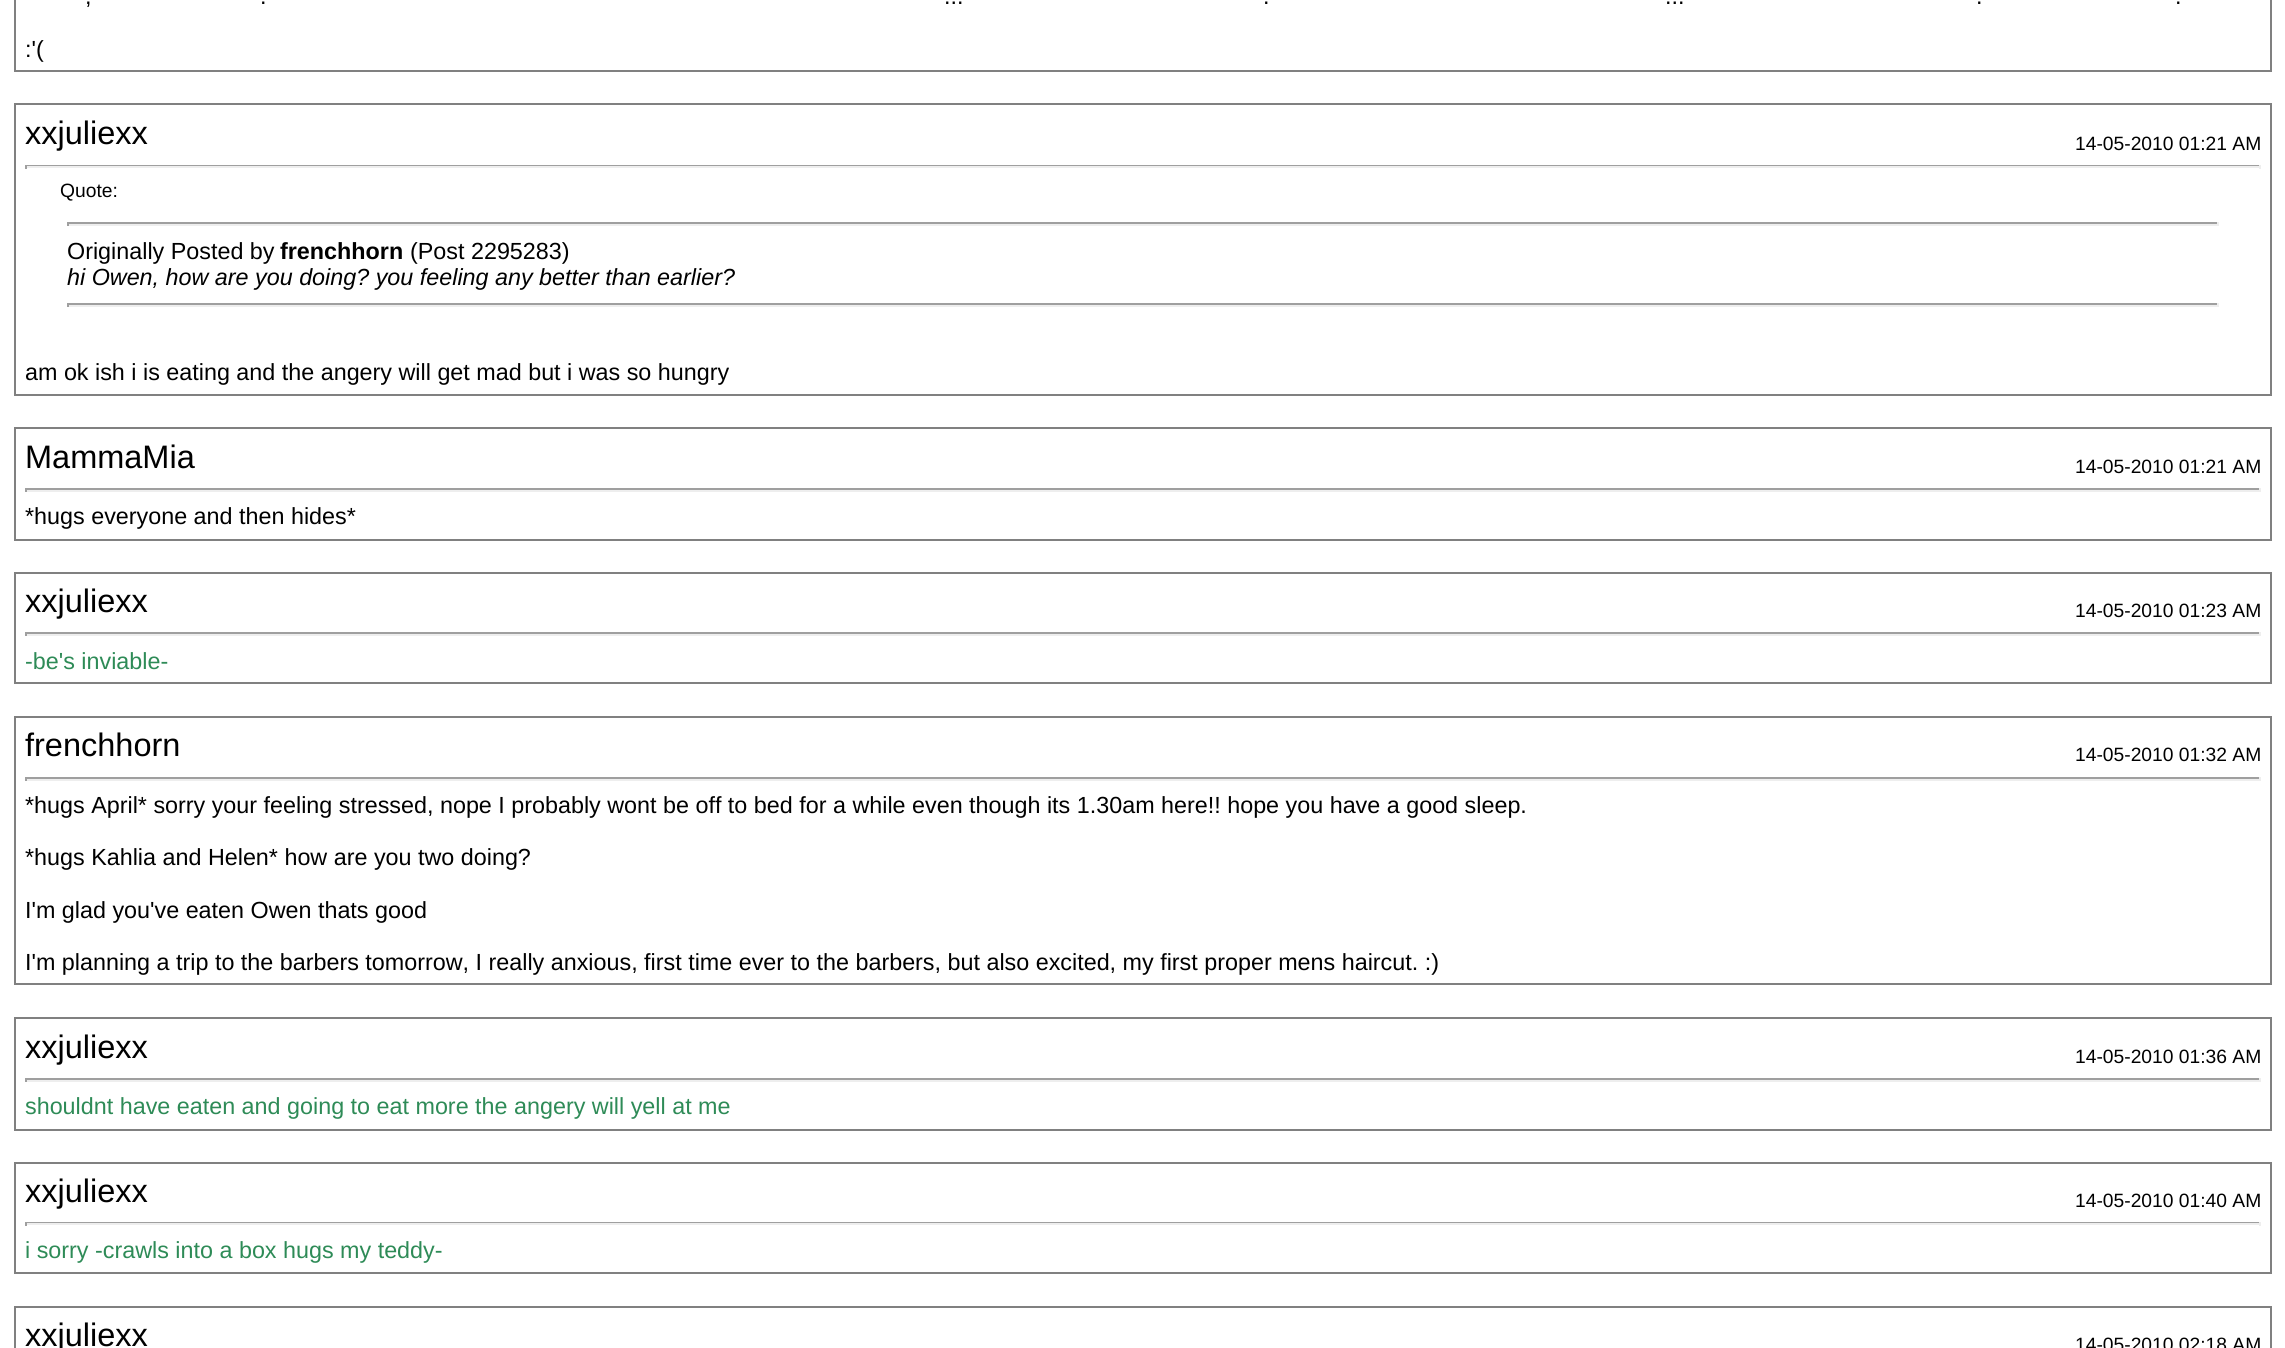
#include <cairo.h>
#include <math.h>
#include <stddef.h>


static void set_color(cairo_t *cr, unsigned color) {
    cairo_set_source_rgb(cr, (color >> 16) / 255.0, (color >> 8 & 255) / 255.0, (color & 255) / 255.0);
}

static void draw_text(cairo_t *cr, double x, double y, const char *s, const char *family, double size, int italic, int bold, unsigned color) {
    cairo_select_font_face(cr, family, italic ? CAIRO_FONT_SLANT_ITALIC : CAIRO_FONT_SLANT_NORMAL,
        bold ? CAIRO_FONT_WEIGHT_BOLD : CAIRO_FONT_WEIGHT_NORMAL);
    cairo_set_font_size(cr, size);
    set_color(cr, color);
    cairo_move_to(cr, x, y);
    cairo_show_text(cr, s);
}

static void fill_rect(cairo_t *cr, double x, double y, double w, double h, unsigned color) {
    set_color(cr, color);
    cairo_rectangle(cr, x, y, w, h);
    cairo_fill(cr);
}

int main(void) {
    cairo_surface_t *surface = cairo_image_surface_create(CAIRO_FORMAT_RGB24, 2285, 1348);
    cairo_t *cr = cairo_create(surface);
    cairo_font_options_t *options = cairo_font_options_create();
    cairo_font_options_set_hint_metrics(options, CAIRO_HINT_METRICS_OFF);
    cairo_font_options_set_hint_style(options, CAIRO_HINT_STYLE_NONE);
    cairo_set_font_options(cr, options);
    cairo_set_miter_limit(cr, 4);
    set_color(cr, 0xFFFFFF);
    cairo_paint(cr);
    cairo_rectangle(cr, 15, -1, 2256, 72);
    set_color(cr, 0x808080);
    cairo_stroke(cr);
    draw_text(cr, 85, 4, ",", "Liberation Sans", 23.33, 0, 0, 0x000000);
    draw_text(cr, 260, 4, ".", "Liberation Sans", 23.33, 0, 0, 0x000000);
    draw_text(cr, 944, 4, "...", "Liberation Sans", 23.33, 0, 0, 0x000000);
    draw_text(cr, 1263, 4, ".", "Liberation Sans", 23.33, 0, 0, 0x000000);
    draw_text(cr, 1665, 4, "...", "Liberation Sans", 23.33, 0, 0, 0x000000);
    draw_text(cr, 1976, 4, ".", "Liberation Sans", 23.33, 0, 0, 0x000000);
    draw_text(cr, 2175, 4, ".", "Liberation Sans", 23.33, 0, 0, 0x000000);
    draw_text(cr, 25, 57, ":'(", "Liberation Sans", 23.33, 0, 0, 0x000000);
    cairo_rectangle(cr, 15, 104, 2256, 291);
    set_color(cr, 0x808080);
    cairo_stroke(cr);
    draw_text(cr, 25, 144, "xxjuliexx", "Liberation Sans", 32.5, 0, 0, 0x000000);
    draw_text(cr, 2075, 150, "14-05-2010 01:21 AM", "Liberation Sans", 19.25, 0, 0, 0x000000);
    fill_rect(cr, 25, 165, 2236, 1, 0x9F9F9F);
    fill_rect(cr, 2259, 165, 2, 4, 0xEEEEEE);
    fill_rect(cr, 25, 166, 2236, 2, 0xEEEEEE);
    fill_rect(cr, 25, 165, 2, 4, 0x9F9F9F);
    draw_text(cr, 60, 197, "Quote:", "Liberation Sans", 19.25, 0, 0, 0x000000);
    fill_rect(cr, 67, 222, 2152, 2, 0x9F9F9F);
    fill_rect(cr, 2217, 222, 2, 4, 0xEEEEEE);
    fill_rect(cr, 67, 224, 2152, 2, 0xEEEEEE);
    fill_rect(cr, 67, 222, 2, 4, 0x9F9F9F);
    draw_text(cr, 67, 259, "Originally Posted by", "Liberation Sans", 23.33, 0, 0, 0x000000);
    draw_text(cr, 280, 259, "frenchhorn", "Liberation Sans", 23.33, 0, 1, 0x000000);
    draw_text(cr, 410, 259, "(Post 2295283)", "Liberation Sans", 23.33, 0, 0, 0x000000);
    draw_text(cr, 67, 285, "hi Owen, how are you doing? you feeling any better than earlier?", "Liberation Sans", 23.33, 1, 0, 0x000000);
    fill_rect(cr, 67, 303, 2152, 2, 0x9F9F9F);
    fill_rect(cr, 2217, 303, 2, 4, 0xEEEEEE);
    fill_rect(cr, 67, 305, 2152, 2, 0xEEEEEE);
    fill_rect(cr, 67, 303, 2, 4, 0x9F9F9F);
    draw_text(cr, 25, 380, "am ok ish i is eating and the angery will get mad but i was so hungry", "Liberation Sans", 23.33, 0, 0, 0x000000);
    cairo_rectangle(cr, 15, 428, 2256, 112);
    set_color(cr, 0x808080);
    cairo_stroke(cr);
    draw_text(cr, 25, 468, "MammaMia", "Liberation Sans", 32.5, 0, 0, 0x000000);
    draw_text(cr, 2075, 473, "14-05-2010 01:21 AM", "Liberation Sans", 19.25, 0, 0, 0x000000);
    fill_rect(cr, 25, 488, 2236, 2, 0x9F9F9F);
    fill_rect(cr, 2259, 488, 2, 4, 0xEEEEEE);
    fill_rect(cr, 25, 490, 2236, 2, 0xEEEEEE);
    fill_rect(cr, 25, 488, 2, 4, 0x9F9F9F);
    draw_text(cr, 25, 524, "*hugs everyone and then hides*", "Liberation Sans", 23.33, 0, 0, 0x000000);
    cairo_rectangle(cr, 15, 573, 2256, 110);
    set_color(cr, 0x808080);
    cairo_stroke(cr);
    draw_text(cr, 25, 612, "xxjuliexx", "Liberation Sans", 32.5, 0, 0, 0x000000);
    draw_text(cr, 2075, 617, "14-05-2010 01:23 AM", "Liberation Sans", 19.25, 0, 0, 0x000000);
    fill_rect(cr, 25, 632, 2236, 2, 0x9F9F9F);
    fill_rect(cr, 2259, 632, 2, 4, 0xEEEEEE);
    fill_rect(cr, 25, 634, 2236, 2, 0xEEEEEE);
    fill_rect(cr, 25, 632, 2, 4, 0x9F9F9F);
    draw_text(cr, 25, 669, "-be's inviable-", "Liberation Sans", 23.33, 0, 0, 0x2E8B57);
    cairo_rectangle(cr, 15, 717, 2256, 267);
    set_color(cr, 0x808080);
    cairo_stroke(cr);
    draw_text(cr, 25, 756, "frenchhorn", "Liberation Sans", 32.5, 0, 0, 0x000000);
    draw_text(cr, 2075, 761, "14-05-2010 01:32 AM", "Liberation Sans", 19.25, 0, 0, 0x000000);
    fill_rect(cr, 25, 777, 2236, 2, 0x9F9F9F);
    fill_rect(cr, 2259, 777, 2, 4, 0xEEEEEE);
    fill_rect(cr, 25, 779, 2236, 2, 0xEEEEEE);
    fill_rect(cr, 25, 777, 2, 4, 0x9F9F9F);
    draw_text(cr, 25, 813, "*hugs April* sorry your feeling stressed, nope I probably wont be off to bed for a while even though its 1.30am here!! hope you have a good sleep.", "Liberation Sans", 23.33, 0, 0, 0x000000);
    draw_text(cr, 25, 865, "*hugs Kahlia and Helen* how are you two doing?", "Liberation Sans", 23.33, 0, 0, 0x000000);
    draw_text(cr, 25, 918, "I'm glad you've eaten Owen thats good", "Liberation Sans", 23.33, 0, 0, 0x000000);
    draw_text(cr, 25, 970, "I'm planning a trip to the barbers tomorrow, I really anxious, first time ever to the barbers, but also excited, my first proper mens haircut. :)", "Liberation Sans", 23.33, 0, 0, 0x000000);
    cairo_rectangle(cr, 15, 1018, 2256, 112);
    set_color(cr, 0x808080);
    cairo_stroke(cr);
    draw_text(cr, 25, 1058, "xxjuliexx", "Liberation Sans", 32.5, 0, 0, 0x000000);
    draw_text(cr, 2075, 1063, "14-05-2010 01:36 AM", "Liberation Sans", 19.25, 0, 0, 0x000000);
    fill_rect(cr, 25, 1078, 2236, 2, 0x9F9F9F);
    fill_rect(cr, 2259, 1078, 2, 4, 0xEEEEEE);
    fill_rect(cr, 25, 1080, 2236, 2, 0xEEEEEE);
    fill_rect(cr, 25, 1078, 2, 4, 0x9F9F9F);
    draw_text(cr, 25, 1114, "shouldnt have eaten and going to eat more the angery will yell at me", "Liberation Sans", 23.33, 0, 0, 0x2E8B57);
    cairo_rectangle(cr, 15, 1163, 2256, 110);
    set_color(cr, 0x808080);
    cairo_stroke(cr);
    draw_text(cr, 25, 1202, "xxjuliexx", "Liberation Sans", 32.5, 0, 0, 0x000000);
    draw_text(cr, 2075, 1207, "14-05-2010 01:40 AM", "Liberation Sans", 19.25, 0, 0, 0x000000);
    fill_rect(cr, 25, 1222, 2236, 1, 0x9F9F9F);
    fill_rect(cr, 2259, 1222, 2, 4, 0xEEEEEE);
    fill_rect(cr, 25, 1223, 2236, 2, 0xEEEEEE);
    fill_rect(cr, 25, 1222, 2, 4, 0x9F9F9F);
    draw_text(cr, 25, 1258, "i sorry -crawls into a box hugs my teddy-", "Liberation Sans", 23.33, 0, 0, 0x2E8B57);
    cairo_rectangle(cr, 15, 1307, 2256, 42);
    set_color(cr, 0x808080);
    cairo_stroke(cr);
    draw_text(cr, 25, 1346, "xxjuliexx", "Liberation Sans", 32.5, 0, 0, 0x000000);
    draw_text(cr, 2075, 1351, "14-05-2010 02:18 AM", "Liberation Sans", 19.25, 0, 0, 0x000000);
    cairo_surface_write_to_png(surface, "output.png");
    cairo_font_options_destroy(options);
    cairo_destroy(cr);
    cairo_surface_destroy(surface);
    return 0;
}
